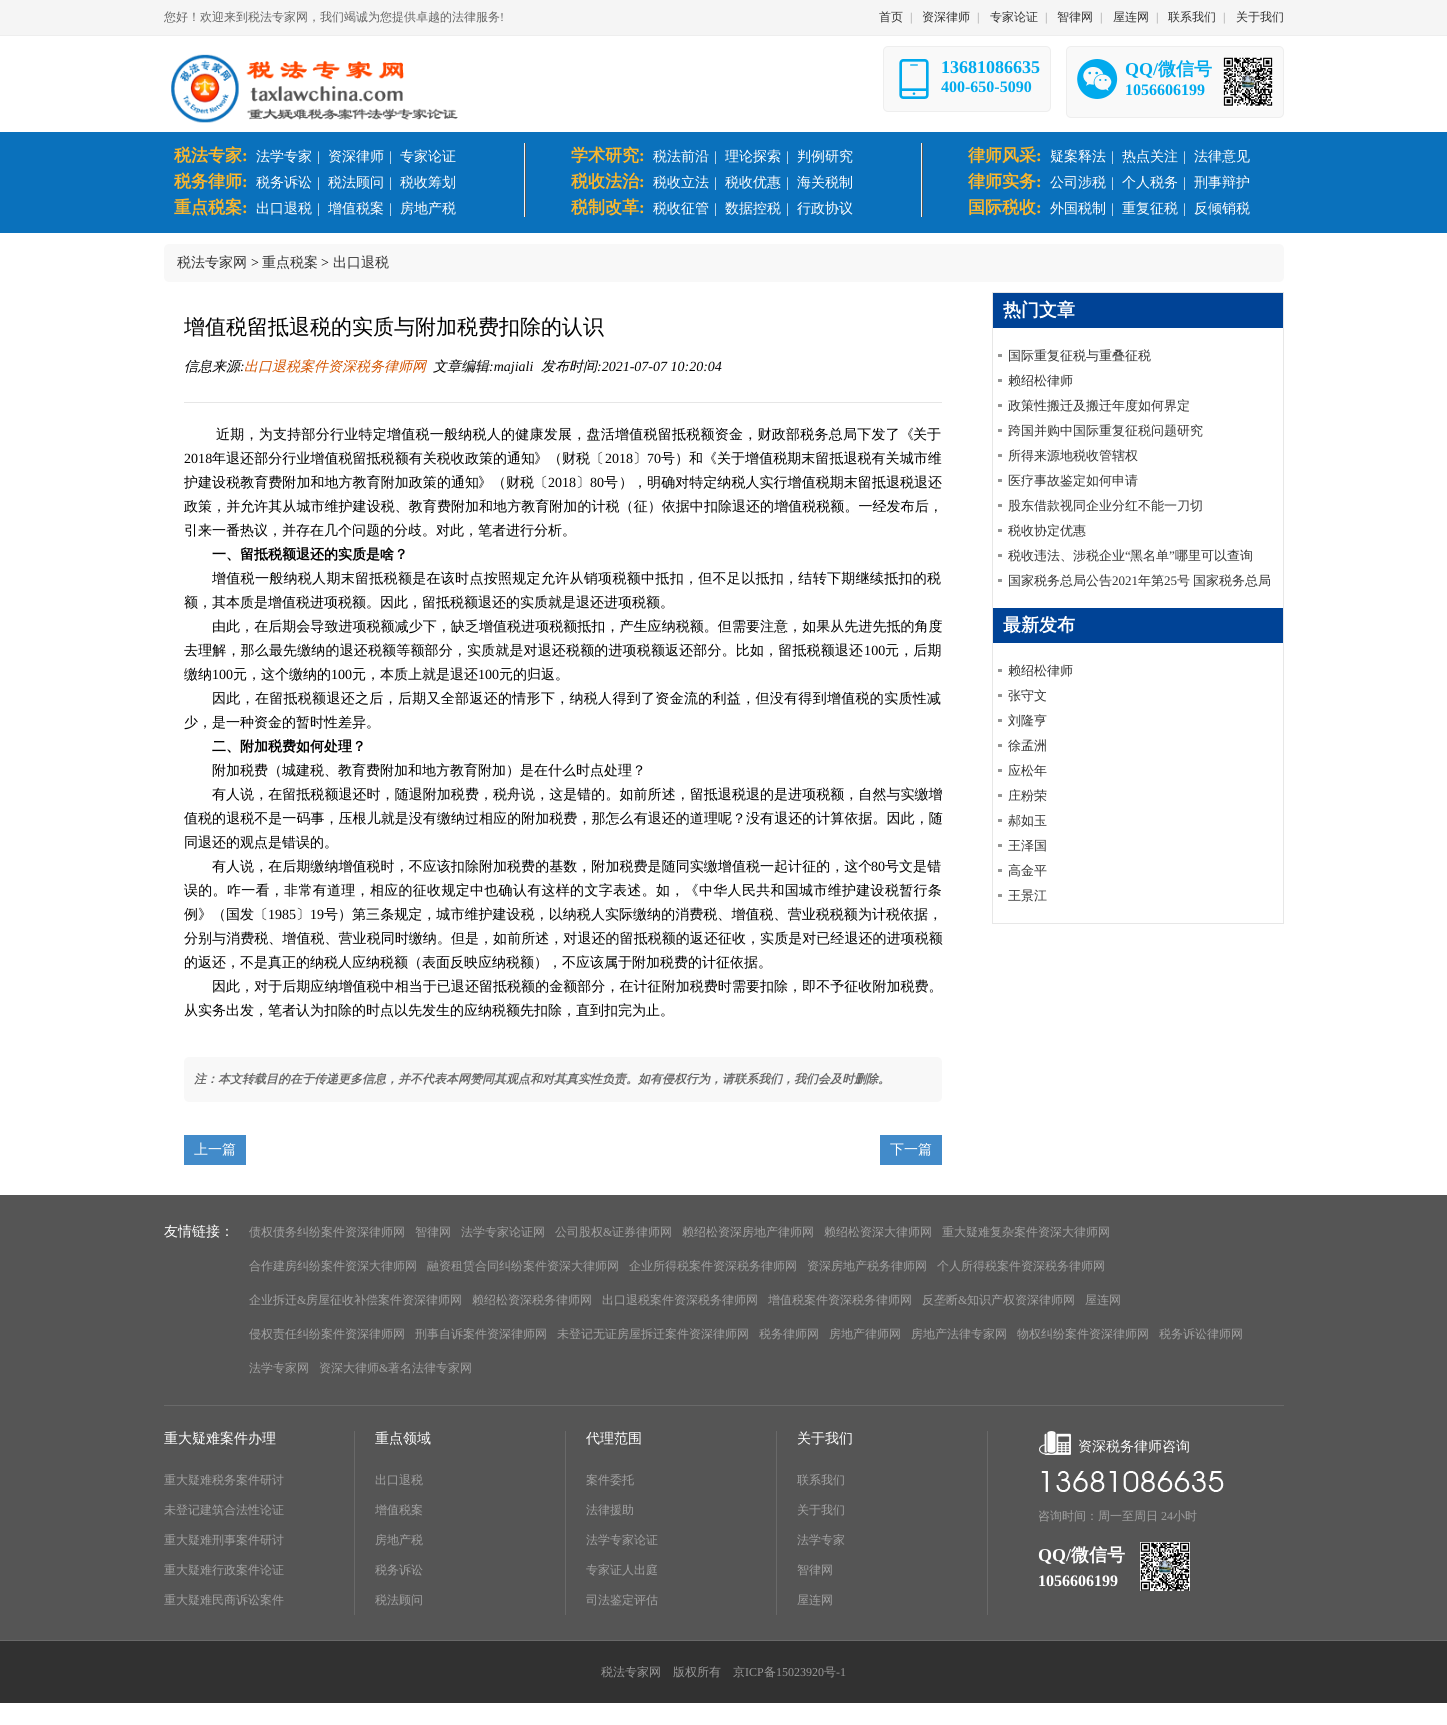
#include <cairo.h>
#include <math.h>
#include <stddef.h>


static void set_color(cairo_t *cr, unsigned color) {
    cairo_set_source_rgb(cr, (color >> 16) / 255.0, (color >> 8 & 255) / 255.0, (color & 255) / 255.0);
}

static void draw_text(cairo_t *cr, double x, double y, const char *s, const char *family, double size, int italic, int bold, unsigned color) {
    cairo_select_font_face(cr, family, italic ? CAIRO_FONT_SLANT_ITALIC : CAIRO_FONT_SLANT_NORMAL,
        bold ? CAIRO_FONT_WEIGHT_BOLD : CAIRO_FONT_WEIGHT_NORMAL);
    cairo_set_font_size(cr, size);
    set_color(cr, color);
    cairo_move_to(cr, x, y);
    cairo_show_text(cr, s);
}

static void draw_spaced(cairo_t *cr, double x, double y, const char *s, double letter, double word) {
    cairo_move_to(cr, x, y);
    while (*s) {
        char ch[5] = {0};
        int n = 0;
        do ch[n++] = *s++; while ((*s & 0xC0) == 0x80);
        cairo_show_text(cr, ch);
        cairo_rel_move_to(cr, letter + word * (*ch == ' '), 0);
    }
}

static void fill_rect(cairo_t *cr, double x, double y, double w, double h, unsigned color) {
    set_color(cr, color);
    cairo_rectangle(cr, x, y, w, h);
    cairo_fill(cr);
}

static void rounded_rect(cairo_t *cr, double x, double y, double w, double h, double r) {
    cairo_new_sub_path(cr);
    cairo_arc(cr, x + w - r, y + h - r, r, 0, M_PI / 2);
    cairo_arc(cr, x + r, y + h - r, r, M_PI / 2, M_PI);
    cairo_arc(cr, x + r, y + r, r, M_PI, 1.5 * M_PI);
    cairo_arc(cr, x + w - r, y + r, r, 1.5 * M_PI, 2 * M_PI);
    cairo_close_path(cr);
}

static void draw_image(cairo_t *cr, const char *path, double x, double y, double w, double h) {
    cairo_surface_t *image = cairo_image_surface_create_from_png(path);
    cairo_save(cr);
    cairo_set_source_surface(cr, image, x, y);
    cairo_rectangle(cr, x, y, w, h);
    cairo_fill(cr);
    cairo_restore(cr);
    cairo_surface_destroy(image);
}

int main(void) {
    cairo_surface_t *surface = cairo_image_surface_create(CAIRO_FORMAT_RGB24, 1447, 1725);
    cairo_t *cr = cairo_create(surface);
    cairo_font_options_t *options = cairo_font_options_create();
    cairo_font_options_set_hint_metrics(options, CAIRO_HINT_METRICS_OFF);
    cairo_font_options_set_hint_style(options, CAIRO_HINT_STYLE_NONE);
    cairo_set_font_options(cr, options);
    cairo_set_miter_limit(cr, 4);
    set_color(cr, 0xFFFFFF);
    cairo_paint(cr);
    fill_rect(cr, 0, 0, 1447, 35, 0xF5F5F5);
    fill_rect(cr, 0, 35, 1447, 1, 0xEEEEEE);
    draw_text(cr, 164, 21, "您好！欢迎来到税法专家网，我们竭诚为您提供卓越的法律服务", "WenQuanYi Zen Hei Medium", 12, 0, 0, 0x666666);
    draw_text(cr, 500, 21, "!", "Liberation Serif", 12, 0, 0, 0x666666);
    draw_text(cr, 879, 21, "首页", "WenQuanYi Zen Hei Medium", 12, 0, 0, 0x333333);
    draw_text(cr, 910, 21, "|", "Liberation Serif", 12, 0, 0, 0x999999);
    draw_text(cr, 922, 21, "资深律师", "WenQuanYi Zen Hei Medium", 12, 0, 0, 0x333333);
    draw_text(cr, 977, 21, "|", "Liberation Serif", 12, 0, 0, 0x999999);
    draw_text(cr, 990, 21, "专家论证", "WenQuanYi Zen Hei Medium", 12, 0, 0, 0x333333);
    draw_text(cr, 1045, 21, "|", "Liberation Serif", 12, 0, 0, 0x999999);
    draw_text(cr, 1057, 21, "智律网", "WenQuanYi Zen Hei Medium", 12, 0, 0, 0x333333);
    draw_text(cr, 1100, 21, "|", "Liberation Serif", 12, 0, 0, 0x999999);
    draw_text(cr, 1113, 21, "屋连网", "WenQuanYi Zen Hei Medium", 12, 0, 0, 0x333333);
    draw_text(cr, 1156, 21, "|", "Liberation Serif", 12, 0, 0, 0x999999);
    draw_text(cr, 1168, 21, "联系我们", "WenQuanYi Zen Hei Medium", 12, 0, 0, 0x333333);
    draw_text(cr, 1223, 21, "|", "Liberation Serif", 12, 0, 0, 0x999999);
    draw_text(cr, 1236, 21, "关于我们", "WenQuanYi Zen Hei Medium", 12, 0, 0, 0x333333);
    draw_image(cr, "assets/img1.png", 171, 54, 287, 69);
    set_color(cr, 0xF9F9F9);
    rounded_rect(cr, 883.5, 46.5, 167, 65, 4.5);
    cairo_fill_preserve(cr);
    set_color(cr, 0xEEEEEE);
    cairo_set_line_width(cr, 1);
    cairo_stroke(cr);
    draw_image(cr, "assets/img2.png", 899, 59, 30, 40);
    draw_text(cr, 941, 73, "13681086635", "Liberation Serif", 18, 0, 1, 0x01AAED);
    draw_text(cr, 941, 92, "400-650-5090", "Liberation Serif", 16, 0, 1, 0x01AAED);
    set_color(cr, 0xF9F9F9);
    rounded_rect(cr, 1066.5, 46.5, 217, 71, 4.5);
    cairo_fill_preserve(cr);
    set_color(cr, 0xEEEEEE);
    cairo_stroke(cr);
    draw_image(cr, "assets/img3.png", 1077, 59, 41, 40);
    draw_text(cr, 1125, 75, "QQ/", "Liberation Serif", 18, 0, 1, 0x01AAED);
    draw_text(cr, 1158, 75, "微信号", "WenQuanYi Zen Hei", 18, 0, 1, 0x01AAED);
    draw_text(cr, 1125, 95, "1056606199", "Liberation Serif", 16, 0, 1, 0x01AAED);
    draw_image(cr, "assets/img4.png", 1223, 57, 50, 50);
    fill_rect(cr, 0, 132, 1447, 101, 0x0A71BC);
    draw_text(cr, 174, 161, "税法专家", "WenQuanYi Zen Hei", 17, 0, 1, 0xFBB62C);
    draw_text(cr, 242, 161, ":", "Liberation Serif", 17, 0, 1, 0xFBB62C);
    draw_text(cr, 256, 161, "法学专家", "WenQuanYi Zen Hei Medium", 14, 0, 0, 0xFFFFFF);
    draw_text(cr, 317, 161, "|", "Liberation Serif", 14, 0, 0, 0xFFFFFF);
    draw_text(cr, 328, 161, "资深律师", "WenQuanYi Zen Hei Medium", 14, 0, 0, 0xFFFFFF);
    draw_text(cr, 389, 161, "|", "Liberation Serif", 14, 0, 0, 0xFFFFFF);
    draw_text(cr, 400, 161, "专家论证", "WenQuanYi Zen Hei Medium", 14, 0, 0, 0xFFFFFF);
    draw_text(cr, 174, 187, "税务律师", "WenQuanYi Zen Hei", 17, 0, 1, 0xFBB62C);
    draw_text(cr, 242, 187, ":", "Liberation Serif", 17, 0, 1, 0xFBB62C);
    draw_text(cr, 256, 187, "税务诉讼", "WenQuanYi Zen Hei Medium", 14, 0, 0, 0xFFFFFF);
    draw_text(cr, 317, 187, "|", "Liberation Serif", 14, 0, 0, 0xFFFFFF);
    draw_text(cr, 328, 187, "税法顾问", "WenQuanYi Zen Hei Medium", 14, 0, 0, 0xFFFFFF);
    draw_text(cr, 389, 187, "|", "Liberation Serif", 14, 0, 0, 0xFFFFFF);
    draw_text(cr, 400, 187, "税收筹划", "WenQuanYi Zen Hei Medium", 14, 0, 0, 0xFFFFFF);
    draw_text(cr, 174, 213, "重点税案", "WenQuanYi Zen Hei", 17, 0, 1, 0xFBB62C);
    draw_text(cr, 242, 213, ":", "Liberation Serif", 17, 0, 1, 0xFBB62C);
    draw_text(cr, 256, 213, "出口退税", "WenQuanYi Zen Hei Medium", 14, 0, 0, 0xFFFFFF);
    draw_text(cr, 317, 213, "|", "Liberation Serif", 14, 0, 0, 0xFFFFFF);
    draw_text(cr, 328, 213, "增值税案", "WenQuanYi Zen Hei Medium", 14, 0, 0, 0xFFFFFF);
    draw_text(cr, 389, 213, "|", "Liberation Serif", 14, 0, 0, 0xFFFFFF);
    draw_text(cr, 400, 213, "房地产税", "WenQuanYi Zen Hei Medium", 14, 0, 0, 0xFFFFFF);
    draw_image(cr, "assets/img5.png", 524, 143, 2, 74);
    draw_text(cr, 571, 161, "学术研究", "WenQuanYi Zen Hei", 17, 0, 1, 0xFBB62C);
    draw_text(cr, 639, 161, ":", "Liberation Serif", 17, 0, 1, 0xFBB62C);
    draw_text(cr, 653, 161, "税法前沿", "WenQuanYi Zen Hei Medium", 14, 0, 0, 0xFFFFFF);
    draw_text(cr, 714, 161, "|", "Liberation Serif", 14, 0, 0, 0xFFFFFF);
    draw_text(cr, 725, 161, "理论探索", "WenQuanYi Zen Hei Medium", 14, 0, 0, 0xFFFFFF);
    draw_text(cr, 786, 161, "|", "Liberation Serif", 14, 0, 0, 0xFFFFFF);
    draw_text(cr, 797, 161, "判例研究", "WenQuanYi Zen Hei Medium", 14, 0, 0, 0xFFFFFF);
    draw_text(cr, 571, 187, "税收法治", "WenQuanYi Zen Hei", 17, 0, 1, 0xFBB62C);
    draw_text(cr, 639, 187, ":", "Liberation Serif", 17, 0, 1, 0xFBB62C);
    draw_text(cr, 653, 187, "税收立法", "WenQuanYi Zen Hei Medium", 14, 0, 0, 0xFFFFFF);
    draw_text(cr, 714, 187, "|", "Liberation Serif", 14, 0, 0, 0xFFFFFF);
    draw_text(cr, 725, 187, "税收优惠", "WenQuanYi Zen Hei Medium", 14, 0, 0, 0xFFFFFF);
    draw_text(cr, 786, 187, "|", "Liberation Serif", 14, 0, 0, 0xFFFFFF);
    draw_text(cr, 797, 187, "海关税制", "WenQuanYi Zen Hei Medium", 14, 0, 0, 0xFFFFFF);
    draw_text(cr, 571, 213, "税制改革", "WenQuanYi Zen Hei", 17, 0, 1, 0xFBB62C);
    draw_text(cr, 639, 213, ":", "Liberation Serif", 17, 0, 1, 0xFBB62C);
    draw_text(cr, 653, 213, "税收征管", "WenQuanYi Zen Hei Medium", 14, 0, 0, 0xFFFFFF);
    draw_text(cr, 714, 213, "|", "Liberation Serif", 14, 0, 0, 0xFFFFFF);
    draw_text(cr, 725, 213, "数据控税", "WenQuanYi Zen Hei Medium", 14, 0, 0, 0xFFFFFF);
    draw_text(cr, 786, 213, "|", "Liberation Serif", 14, 0, 0, 0xFFFFFF);
    draw_text(cr, 797, 213, "行政协议", "WenQuanYi Zen Hei Medium", 14, 0, 0, 0xFFFFFF);
    draw_image(cr, "assets/img5.png", 921, 143, 2, 74);
    draw_text(cr, 968, 161, "律师风采", "WenQuanYi Zen Hei", 17, 0, 1, 0xFBB62C);
    draw_text(cr, 1036, 161, ":", "Liberation Serif", 17, 0, 1, 0xFBB62C);
    draw_text(cr, 1050, 161, "疑案释法", "WenQuanYi Zen Hei Medium", 14, 0, 0, 0xFFFFFF);
    draw_text(cr, 1111, 161, "|", "Liberation Serif", 14, 0, 0, 0xFFFFFF);
    draw_text(cr, 1122, 161, "热点关注", "WenQuanYi Zen Hei Medium", 14, 0, 0, 0xFFFFFF);
    draw_text(cr, 1183, 161, "|", "Liberation Serif", 14, 0, 0, 0xFFFFFF);
    draw_text(cr, 1194, 161, "法律意见", "WenQuanYi Zen Hei Medium", 14, 0, 0, 0xFFFFFF);
    draw_text(cr, 968, 187, "律师实务", "WenQuanYi Zen Hei", 17, 0, 1, 0xFBB62C);
    draw_text(cr, 1036, 187, ":", "Liberation Serif", 17, 0, 1, 0xFBB62C);
    draw_text(cr, 1050, 187, "公司涉税", "WenQuanYi Zen Hei Medium", 14, 0, 0, 0xFFFFFF);
    draw_text(cr, 1111, 187, "|", "Liberation Serif", 14, 0, 0, 0xFFFFFF);
    draw_text(cr, 1122, 187, "个人税务", "WenQuanYi Zen Hei Medium", 14, 0, 0, 0xFFFFFF);
    draw_text(cr, 1183, 187, "|", "Liberation Serif", 14, 0, 0, 0xFFFFFF);
    draw_text(cr, 1194, 187, "刑事辩护", "WenQuanYi Zen Hei Medium", 14, 0, 0, 0xFFFFFF);
    draw_text(cr, 968, 213, "国际税收", "WenQuanYi Zen Hei", 17, 0, 1, 0xFBB62C);
    draw_text(cr, 1036, 213, ":", "Liberation Serif", 17, 0, 1, 0xFBB62C);
    draw_text(cr, 1050, 213, "外国税制", "WenQuanYi Zen Hei Medium", 14, 0, 0, 0xFFFFFF);
    draw_text(cr, 1111, 213, "|", "Liberation Serif", 14, 0, 0, 0xFFFFFF);
    draw_text(cr, 1122, 213, "重复征税", "WenQuanYi Zen Hei Medium", 14, 0, 0, 0xFFFFFF);
    draw_text(cr, 1183, 213, "|", "Liberation Serif", 14, 0, 0, 0xFFFFFF);
    draw_text(cr, 1194, 213, "反倾销税", "WenQuanYi Zen Hei Medium", 14, 0, 0, 0xFFFFFF);
    set_color(cr, 0xF8F8F8);
    rounded_rect(cr, 164, 244, 1120, 38, 5);
    cairo_fill(cr);
    draw_text(cr, 177, 267, "税法专家网", "WenQuanYi Zen Hei Medium", 14, 0, 0, 0x333333);
    draw_text(cr, 251, 267, ">", "Liberation Serif", 14, 0, 0, 0x000000);
    draw_text(cr, 262, 267, "重点税案", "WenQuanYi Zen Hei Medium", 14, 0, 0, 0x333333);
    draw_text(cr, 321, 267, ">", "Liberation Serif", 14, 0, 0, 0x000000);
    draw_text(cr, 333, 267, "出口退税", "WenQuanYi Zen Hei Medium", 14, 0, 0, 0x333333);
    draw_text(cr, 184, 334, "增值税留抵退税的实质与附加税费扣除的认识", "WenQuanYi Zen Hei Medium", 21, 0, 0, 0x000000);
    draw_text(cr, 184, 371, "信息来源", "WenQuanYi Zen Hei Medium", 14, 1, 0, 0x000000);
    draw_text(cr, 244, 371, "出口退税案件资深税务律师网", "WenQuanYi Zen Hei Medium", 14, 1, 0, 0xD35400);
    draw_text(cr, 433, 371, "文章编辑", "WenQuanYi Zen Hei Medium", 14, 1, 0, 0x000000);
    draw_text(cr, 489, 371, ":majiali", "Liberation Serif", 14, 1, 0, 0x000000);
    draw_text(cr, 541, 371, "发布时间", "WenQuanYi Zen Hei Medium", 14, 1, 0, 0x000000);
    draw_text(cr, 597, 371, ":2021-07-07 10:20:04", "Liberation Serif", 14, 1, 0, 0x000000);
    draw_text(cr, 240, 371, ":", "Liberation Serif", 14, 1, 0, 0x000000);
    fill_rect(cr, 184, 402, 758, 1, 0xE6E6E6);
    cairo_select_font_face(cr, "WenQuanYi Zen Hei Medium", CAIRO_FONT_SLANT_NORMAL, CAIRO_FONT_WEIGHT_NORMAL);
    set_color(cr, 0x000000);
    draw_spaced(cr, 216, 439, "近期，为支持部分行业特定增值税一般纳税人的健康发展，盘活增值税留抵税额资金，财政部税务总局下发了《", 0.25, 0);
    draw_text(cr, 913, 439, "关于", "WenQuanYi Zen Hei Medium", 14, 0, 0, 0x000000);
    cairo_select_font_face(cr, "Liberation Serif", CAIRO_FONT_SLANT_NORMAL, CAIRO_FONT_WEIGHT_NORMAL);
    draw_spaced(cr, 184, 463, "2018", 0.05, 0);
    cairo_select_font_face(cr, "WenQuanYi Zen Hei Medium", CAIRO_FONT_SLANT_NORMAL, CAIRO_FONT_WEIGHT_NORMAL);
    draw_spaced(cr, 212, 463, "年退还部分行业增值税留抵税额有关税收政策的通知", 0.05, 0);
    draw_text(cr, 534, 463, "》（财税〔", "WenQuanYi Zen Hei Medium", 14, 0, 0, 0x000000);
    draw_text(cr, 605, 463, "2018", "Liberation Serif", 14, 0, 0, 0x000000);
    draw_text(cr, 633, 463, "〕", "WenQuanYi Zen Hei Medium", 14, 0, 0, 0x000000);
    draw_text(cr, 647, 463, "70", "Liberation Serif", 14, 0, 0, 0x000000);
    draw_text(cr, 661, 463, "号）和《", "WenQuanYi Zen Hei Medium", 14, 0, 0, 0x000000);
    draw_spaced(cr, 717, 463, "关于增值税期末留抵退税有关城市维", 0.05, 0);
    draw_spaced(cr, 184, 487, "护建设税教育费附加和地方教育附加政策的通知", 0.05, 0);
    draw_text(cr, 478, 487, "》（财税〔", "WenQuanYi Zen Hei Medium", 14, 0, 0, 0x000000);
    draw_text(cr, 548, 487, "2018", "Liberation Serif", 14, 0, 0, 0x000000);
    draw_text(cr, 576, 487, "〕", "WenQuanYi Zen Hei Medium", 14, 0, 0, 0x000000);
    draw_text(cr, 590, 487, "80", "Liberation Serif", 14, 0, 0, 0x000000);
    draw_text(cr, 604, 487, "号", "WenQuanYi Zen Hei Medium", 14, 0, 0, 0x000000);
    draw_spaced(cr, 619, 487, "），明确对特定纳税人实行增值税期末留抵退税退还", 0.05, 0);
    draw_spaced(cr, 184, 511, "政策，并允许其从城市维护建设税、教育费附加和地方教育附加的计税（征）依据中扣除退还的增值税税额。一经发布后，", 0.05, 0);
    draw_text(cr, 184, 535, "引来一番热议，并存在几个问题的分歧。对此，笔者进行分析。", "WenQuanYi Zen Hei Medium", 14, 0, 0, 0x000000);
    draw_text(cr, 212, 559, "一、留抵税额退还的实质是啥？", "WenQuanYi Zen Hei", 14, 0, 1, 0x000000);
    cairo_select_font_face(cr, "WenQuanYi Zen Hei Medium", CAIRO_FONT_SLANT_NORMAL, CAIRO_FONT_WEIGHT_NORMAL);
    draw_spaced(cr, 212, 583, "增值税一般纳税人期末留抵税额是在该时点按照规定允许从销项税额中抵扣，但不足以抵扣，结转下期继续抵扣的税", 0.3, 0);
    draw_text(cr, 184, 607, "额，其本质是增值税进项税额。因此，留抵税额退还的实质就是退还进项税额。", "WenQuanYi Zen Hei Medium", 14, 0, 0, 0x000000);
    draw_spaced(cr, 212, 631, "由此，在后期会导致进项税额减少下，缺乏增值税进项税额抵扣，产生应纳税额。但需要注意，如果从先进先抵的角度", 0.05, 0);
    draw_spaced(cr, 184, 655, "去理解，那么最先缴纳的退还税额等额部分，实质就是对退还税额的进项税额返还部分。比如，留抵税额退还", 0.15, 0);
    cairo_select_font_face(cr, "Liberation Serif", CAIRO_FONT_SLANT_NORMAL, CAIRO_FONT_WEIGHT_NORMAL);
    draw_spaced(cr, 864, 655, "100", 0.15, 0);
    cairo_select_font_face(cr, "WenQuanYi Zen Hei Medium", CAIRO_FONT_SLANT_NORMAL, CAIRO_FONT_WEIGHT_NORMAL);
    draw_spaced(cr, 885, 655, "元，后期", 0.15, 0);
    draw_text(cr, 184, 679, "缴纳", "WenQuanYi Zen Hei Medium", 14, 0, 0, 0x000000);
    draw_text(cr, 212, 679, "100", "Liberation Serif", 14, 0, 0, 0x000000);
    draw_text(cr, 233, 679, "元，这个缴纳的", "WenQuanYi Zen Hei Medium", 14, 0, 0, 0x000000);
    draw_text(cr, 331, 679, "100", "Liberation Serif", 14, 0, 0, 0x000000);
    draw_text(cr, 352, 679, "元，本质上就是退还", "WenQuanYi Zen Hei Medium", 14, 0, 0, 0x000000);
    draw_text(cr, 478, 679, "100", "Liberation Serif", 14, 0, 0, 0x000000);
    draw_text(cr, 499, 679, "元的归返。", "WenQuanYi Zen Hei Medium", 14, 0, 0, 0x000000);
    draw_spaced(cr, 212, 703, "因此，在留抵税额退还之后，后期又全部返还的情形下，纳税人得到了资金流的利益，但没有得到增值税的实质性减", 0.3, 0);
    draw_text(cr, 184, 727, "少，是一种资金的暂时性差异。", "WenQuanYi Zen Hei Medium", 14, 0, 0, 0x000000);
    draw_text(cr, 212, 751, "二、附加税费如何处理？", "WenQuanYi Zen Hei", 14, 0, 1, 0x000000);
    draw_text(cr, 212, 775, "附加税费（城建税、教育费附加和地方教育附加）是在什么时点处理？", "WenQuanYi Zen Hei Medium", 14, 0, 0, 0x000000);
    draw_spaced(cr, 212, 799, "有人说，在留抵税额退还时，随退附加税费，税舟说，这是错的。如前所述，留抵退税退的是进项税额，自然与实缴增", 0.05, 0);
    draw_spaced(cr, 184, 823, "值税的退税不是一码事，压根儿就是没有缴纳过相应的附加税费，那怎么有退还的道理呢？没有退还的计算依据。因此，随", 0.05, 0);
    draw_text(cr, 184, 847, "同退还的观点是错误的。", "WenQuanYi Zen Hei Medium", 14, 0, 0, 0x000000);
    draw_spaced(cr, 212, 871, "有人说，在后期缴纳增值税时，不应该扣除附加税费的基数，附加税费是随同实缴增值税一起计征的，这个", 0.05, 0);
    cairo_select_font_face(cr, "Liberation Serif", CAIRO_FONT_SLANT_NORMAL, CAIRO_FONT_WEIGHT_NORMAL);
    draw_spaced(cr, 871, 871, "80", 0.05, 0);
    cairo_select_font_face(cr, "WenQuanYi Zen Hei Medium", CAIRO_FONT_SLANT_NORMAL, CAIRO_FONT_WEIGHT_NORMAL);
    draw_spaced(cr, 885, 871, "号文是错", 0.05, 0);
    draw_spaced(cr, 184, 895, "误的。咋一看，非常有道理，相应的征收规定中也确认有这样的文字表述。如，《", 0.3, 0);
    draw_spaced(cr, 699, 895, "中华人民共和国城市维护建设税暂行条", 0.3, 0);
    draw_text(cr, 184, 919, "例》（国发〔", "WenQuanYi Zen Hei Medium", 14, 0, 0, 0x000000);
    draw_text(cr, 268, 919, "1985", "Liberation Serif", 14, 0, 0, 0x000000);
    draw_text(cr, 296, 919, "〕", "WenQuanYi Zen Hei Medium", 14, 0, 0, 0x000000);
    draw_text(cr, 310, 919, "19", "Liberation Serif", 14, 0, 0, 0x000000);
    draw_text(cr, 324, 919, "号", "WenQuanYi Zen Hei Medium", 14, 0, 0, 0x000000);
    draw_spaced(cr, 338, 919, "）第三条规定，城市维护建设税，以纳税人实际缴纳的消费税、增值税、营业税税额为计税依据，", 0.05, 0);
    draw_spaced(cr, 184, 943, "分别与消费税、增值税、营业税同时缴纳。但是，如前所述，对退还的留抵税额的返还征收，实质是对已经退还的进项税额", 0.05, 0);
    draw_text(cr, 184, 967, "的返还，不是真正的纳税人应纳税额（表面反映应纳税额），不应该属于附加税费的计征依据。", "WenQuanYi Zen Hei Medium", 14, 0, 0, 0x000000);
    draw_spaced(cr, 212, 991, "因此，对于后期应纳增值税中相当于已退还留抵税额的金额部分，在计征附加税费时需要扣除，即不予征收附加税费。", 0.05, 0);
    draw_text(cr, 184, 1015, "从实务出发，笔者认为扣除的时点以先发生的应纳税额先扣除，直到扣完为止。", "WenQuanYi Zen Hei Medium", 14, 0, 0, 0x000000);
    set_color(cr, 0xF8F8F8);
    rounded_rect(cr, 184, 1057, 758, 45, 5);
    cairo_fill(cr);
    draw_text(cr, 194, 1083, "注：本文转载目的在于传递更多信息，并不代表本网赞同其观点和对其真实性负责。如有侵权行为，请联系我们，我们会及时删除。", "WenQuanYi Zen Hei", 12, 1, 1, 0x666666);
    fill_rect(cr, 184, 1135, 62, 30, 0x428BCA);
    draw_text(cr, 194, 1154, "上一篇", "WenQuanYi Zen Hei Medium", 14, 0, 0, 0xFFFFFF);
    fill_rect(cr, 880, 1135, 62, 30, 0x428BCA);
    draw_text(cr, 890, 1154, "下一篇", "WenQuanYi Zen Hei Medium", 14, 0, 0, 0xFFFFFF);
    cairo_rectangle(cr, 992.5, 292.5, 291, 631);
    set_color(cr, 0xE7E7E7);
    cairo_stroke(cr);
    fill_rect(cr, 993, 293, 290, 35, 0x004396);
    draw_text(cr, 1003, 316, "热门文章", "WenQuanYi Zen Hei", 18, 0, 1, 0xFFFFFF);
    fill_rect(cr, 998, 354, 4, 3, 0x969796);
    draw_text(cr, 1008, 360, "国际重复征税与重叠征税", "WenQuanYi Zen Hei Medium", 13, 0, 0, 0x333333);
    fill_rect(cr, 998, 379, 4, 3, 0x969796);
    draw_text(cr, 1008, 385, "赖绍松律师", "WenQuanYi Zen Hei Medium", 13, 0, 0, 0x333333);
    fill_rect(cr, 998, 404, 4, 3, 0x969796);
    draw_text(cr, 1008, 410, "政策性搬迁及搬迁年度如何界定", "WenQuanYi Zen Hei Medium", 13, 0, 0, 0x333333);
    fill_rect(cr, 998, 429, 4, 3, 0x969796);
    draw_text(cr, 1008, 435, "跨国并购中国际重复征税问题研究", "WenQuanYi Zen Hei Medium", 13, 0, 0, 0x333333);
    fill_rect(cr, 998, 454, 4, 3, 0x969796);
    draw_text(cr, 1008, 460, "所得来源地税收管辖权", "WenQuanYi Zen Hei Medium", 13, 0, 0, 0x333333);
    fill_rect(cr, 998, 479, 4, 3, 0x969796);
    draw_text(cr, 1008, 485, "医疗事故鉴定如何申请", "WenQuanYi Zen Hei Medium", 13, 0, 0, 0x333333);
    fill_rect(cr, 998, 504, 4, 3, 0x969796);
    draw_text(cr, 1008, 510, "股东借款视同企业分红不能一刀切", "WenQuanYi Zen Hei Medium", 13, 0, 0, 0x333333);
    fill_rect(cr, 998, 529, 4, 3, 0x969796);
    draw_text(cr, 1008, 535, "税收协定优惠", "WenQuanYi Zen Hei Medium", 13, 0, 0, 0x333333);
    fill_rect(cr, 998, 554, 4, 3, 0x969796);
    draw_text(cr, 1008, 560, "税收违法、涉税企业", "WenQuanYi Zen Hei Medium", 13, 0, 0, 0x333333);
    draw_text(cr, 1125, 560, "“", "Liberation Serif", 13, 0, 0, 0x333333);
    draw_text(cr, 1130, 560, "黑名单", "WenQuanYi Zen Hei Medium", 13, 0, 0, 0x333333);
    draw_text(cr, 1169, 560, "”", "Liberation Serif", 13, 0, 0, 0x333333);
    draw_text(cr, 1175, 560, "哪里可以查询", "WenQuanYi Zen Hei Medium", 13, 0, 0, 0x333333);
    fill_rect(cr, 998, 579, 4, 3, 0x969796);
    draw_text(cr, 1008, 585, "国家税务总局公告", "WenQuanYi Zen Hei Medium", 13, 0, 0, 0x333333);
    draw_text(cr, 1112, 585, "2021", "Liberation Serif", 13, 0, 0, 0x333333);
    draw_text(cr, 1138, 585, "年第", "WenQuanYi Zen Hei Medium", 13, 0, 0, 0x333333);
    draw_text(cr, 1164, 585, "25", "Liberation Serif", 13, 0, 0, 0x333333);
    cairo_select_font_face(cr, "WenQuanYi Zen Hei Medium", CAIRO_FONT_SLANT_NORMAL, CAIRO_FONT_WEIGHT_NORMAL);
    draw_spaced(cr, 1177, 585, "号 国家税务总局", 0, -1);
    fill_rect(cr, 993, 608, 290, 35, 0x004396);
    draw_text(cr, 1003, 631, "最新发布", "WenQuanYi Zen Hei", 18, 0, 1, 0xFFFFFF);
    fill_rect(cr, 998, 669, 4, 3, 0x969796);
    draw_text(cr, 1008, 675, "赖绍松律师", "WenQuanYi Zen Hei Medium", 13, 0, 0, 0x333333);
    fill_rect(cr, 998, 694, 4, 3, 0x969796);
    draw_text(cr, 1008, 700, "张守文", "WenQuanYi Zen Hei Medium", 13, 0, 0, 0x333333);
    fill_rect(cr, 998, 719, 4, 3, 0x969796);
    draw_text(cr, 1008, 725, "刘隆亨", "WenQuanYi Zen Hei Medium", 13, 0, 0, 0x333333);
    fill_rect(cr, 998, 744, 4, 3, 0x969796);
    draw_text(cr, 1008, 750, "徐孟洲", "WenQuanYi Zen Hei Medium", 13, 0, 0, 0x333333);
    fill_rect(cr, 998, 769, 4, 3, 0x969796);
    draw_text(cr, 1008, 775, "应松年", "WenQuanYi Zen Hei Medium", 13, 0, 0, 0x333333);
    fill_rect(cr, 998, 794, 4, 3, 0x969796);
    draw_text(cr, 1008, 800, "庄粉荣", "WenQuanYi Zen Hei Medium", 13, 0, 0, 0x333333);
    fill_rect(cr, 998, 819, 4, 3, 0x969796);
    draw_text(cr, 1008, 825, "郝如玉", "WenQuanYi Zen Hei Medium", 13, 0, 0, 0x333333);
    fill_rect(cr, 998, 844, 4, 3, 0x969796);
    draw_text(cr, 1008, 850, "王泽国", "WenQuanYi Zen Hei Medium", 13, 0, 0, 0x333333);
    fill_rect(cr, 998, 869, 4, 3, 0x969796);
    draw_text(cr, 1008, 875, "高金平", "WenQuanYi Zen Hei Medium", 13, 0, 0, 0x333333);
    fill_rect(cr, 998, 894, 4, 3, 0x969796);
    draw_text(cr, 1008, 900, "王景江", "WenQuanYi Zen Hei Medium", 13, 0, 0, 0x333333);
    fill_rect(cr, 0, 1195, 1447, 445, 0x555555);
    fill_rect(cr, 0, 1640, 1447, 1, 0x696969);
    fill_rect(cr, 164, 1405, 1120, 1, 0x696969);
    draw_text(cr, 164, 1236, "友情链接：", "WenQuanYi Zen Hei Medium", 14, 0, 0, 0xFFFFFF);
    draw_text(cr, 249, 1236, "债权债务纠纷案件资深律师网", "WenQuanYi Zen Hei Medium", 12, 0, 0, 0xA1A1A1);
    draw_text(cr, 415, 1236, "智律网", "WenQuanYi Zen Hei Medium", 12, 0, 0, 0xA1A1A1);
    draw_text(cr, 461, 1236, "法学专家论证网", "WenQuanYi Zen Hei Medium", 12, 0, 0, 0xA1A1A1);
    draw_text(cr, 555, 1236, "公司股权", "WenQuanYi Zen Hei Medium", 12, 0, 0, 0xA1A1A1);
    draw_text(cr, 603, 1236, "&", "Liberation Serif", 12, 0, 0, 0xA1A1A1);
    draw_text(cr, 612, 1236, "证券律师网", "WenQuanYi Zen Hei Medium", 12, 0, 0, 0xA1A1A1);
    draw_text(cr, 682, 1236, "赖绍松资深房地产律师网", "WenQuanYi Zen Hei Medium", 12, 0, 0, 0xA1A1A1);
    draw_text(cr, 824, 1236, "赖绍松资深大律师网", "WenQuanYi Zen Hei Medium", 12, 0, 0, 0xA1A1A1);
    draw_text(cr, 942, 1236, "重大疑难复杂案件资深大律师网", "WenQuanYi Zen Hei Medium", 12, 0, 0, 0xA1A1A1);
    draw_text(cr, 249, 1270, "合作建房纠纷案件资深大律师网", "WenQuanYi Zen Hei Medium", 12, 0, 0, 0xA1A1A1);
    draw_text(cr, 427, 1270, "融资租赁合同纠纷案件资深大律师网", "WenQuanYi Zen Hei Medium", 12, 0, 0, 0xA1A1A1);
    draw_text(cr, 629, 1270, "企业所得税案件资深税务律师网", "WenQuanYi Zen Hei Medium", 12, 0, 0, 0xA1A1A1);
    draw_text(cr, 807, 1270, "资深房地产税务律师网", "WenQuanYi Zen Hei Medium", 12, 0, 0, 0xA1A1A1);
    draw_text(cr, 937, 1270, "个人所得税案件资深税务律师网", "WenQuanYi Zen Hei Medium", 12, 0, 0, 0xA1A1A1);
    draw_text(cr, 249, 1304, "企业拆迁", "WenQuanYi Zen Hei Medium", 12, 0, 0, 0xA1A1A1);
    draw_text(cr, 297, 1304, "&", "Liberation Serif", 12, 0, 0, 0xA1A1A1);
    draw_text(cr, 306, 1304, "房屋征收补偿案件资深律师网", "WenQuanYi Zen Hei Medium", 12, 0, 0, 0xA1A1A1);
    draw_text(cr, 472, 1304, "赖绍松资深税务律师网", "WenQuanYi Zen Hei Medium", 12, 0, 0, 0xA1A1A1);
    draw_text(cr, 602, 1304, "出口退税案件资深税务律师网", "WenQuanYi Zen Hei Medium", 12, 0, 0, 0xA1A1A1);
    draw_text(cr, 768, 1304, "增值税案件资深税务律师网", "WenQuanYi Zen Hei Medium", 12, 0, 0, 0xA1A1A1);
    draw_text(cr, 922, 1304, "反垄断", "WenQuanYi Zen Hei Medium", 12, 0, 0, 0xA1A1A1);
    draw_text(cr, 958, 1304, "&", "Liberation Serif", 12, 0, 0, 0xA1A1A1);
    draw_text(cr, 967, 1304, "知识产权资深律师网", "WenQuanYi Zen Hei Medium", 12, 0, 0, 0xA1A1A1);
    draw_text(cr, 1085, 1304, "屋连网", "WenQuanYi Zen Hei Medium", 12, 0, 0, 0xA1A1A1);
    draw_text(cr, 249, 1338, "侵权责任纠纷案件资深律师网", "WenQuanYi Zen Hei Medium", 12, 0, 0, 0xA1A1A1);
    draw_text(cr, 415, 1338, "刑事自诉案件资深律师网", "WenQuanYi Zen Hei Medium", 12, 0, 0, 0xA1A1A1);
    draw_text(cr, 557, 1338, "未登记无证房屋拆迁案件资深律师网", "WenQuanYi Zen Hei Medium", 12, 0, 0, 0xA1A1A1);
    draw_text(cr, 759, 1338, "税务律师网", "WenQuanYi Zen Hei Medium", 12, 0, 0, 0xA1A1A1);
    draw_text(cr, 829, 1338, "房地产律师网", "WenQuanYi Zen Hei Medium", 12, 0, 0, 0xA1A1A1);
    draw_text(cr, 911, 1338, "房地产法律专家网", "WenQuanYi Zen Hei Medium", 12, 0, 0, 0xA1A1A1);
    draw_text(cr, 1017, 1338, "物权纠纷案件资深律师网", "WenQuanYi Zen Hei Medium", 12, 0, 0, 0xA1A1A1);
    draw_text(cr, 1159, 1338, "税务诉讼律师网", "WenQuanYi Zen Hei Medium", 12, 0, 0, 0xA1A1A1);
    draw_text(cr, 249, 1372, "法学专家网", "WenQuanYi Zen Hei Medium", 12, 0, 0, 0xA1A1A1);
    draw_text(cr, 319, 1372, "资深大律师", "WenQuanYi Zen Hei Medium", 12, 0, 0, 0xA1A1A1);
    draw_text(cr, 379, 1372, "&", "Liberation Serif", 12, 0, 0, 0xA1A1A1);
    draw_text(cr, 388, 1372, "著名法律专家网", "WenQuanYi Zen Hei Medium", 12, 0, 0, 0xA1A1A1);
    fill_rect(cr, 354, 1431, 1, 184, 0x696969);
    draw_text(cr, 164, 1443, "重大疑难案件办理", "WenQuanYi Zen Hei Medium", 14, 0, 0, 0xFFFFFF);
    draw_text(cr, 164, 1484, "重大疑难税务案件研讨", "WenQuanYi Zen Hei Medium", 12, 0, 0, 0xA1A1A1);
    draw_text(cr, 164, 1514, "未登记建筑合法性论证", "WenQuanYi Zen Hei Medium", 12, 0, 0, 0xA1A1A1);
    draw_text(cr, 164, 1544, "重大疑难刑事案件研讨", "WenQuanYi Zen Hei Medium", 12, 0, 0, 0xA1A1A1);
    draw_text(cr, 164, 1574, "重大疑难行政案件论证", "WenQuanYi Zen Hei Medium", 12, 0, 0, 0xA1A1A1);
    draw_text(cr, 164, 1604, "重大疑难民商诉讼案件", "WenQuanYi Zen Hei Medium", 12, 0, 0, 0xA1A1A1);
    fill_rect(cr, 565, 1431, 1, 184, 0x696969);
    draw_text(cr, 375, 1443, "重点领域", "WenQuanYi Zen Hei Medium", 14, 0, 0, 0xFFFFFF);
    draw_text(cr, 375, 1484, "出口退税", "WenQuanYi Zen Hei Medium", 12, 0, 0, 0xA1A1A1);
    draw_text(cr, 375, 1514, "增值税案", "WenQuanYi Zen Hei Medium", 12, 0, 0, 0xA1A1A1);
    draw_text(cr, 375, 1544, "房地产税", "WenQuanYi Zen Hei Medium", 12, 0, 0, 0xA1A1A1);
    draw_text(cr, 375, 1574, "税务诉讼", "WenQuanYi Zen Hei Medium", 12, 0, 0, 0xA1A1A1);
    draw_text(cr, 375, 1604, "税法顾问", "WenQuanYi Zen Hei Medium", 12, 0, 0, 0xA1A1A1);
    fill_rect(cr, 776, 1431, 1, 184, 0x696969);
    draw_text(cr, 586, 1443, "代理范围", "WenQuanYi Zen Hei Medium", 14, 0, 0, 0xFFFFFF);
    draw_text(cr, 586, 1484, "案件委托", "WenQuanYi Zen Hei Medium", 12, 0, 0, 0xA1A1A1);
    draw_text(cr, 586, 1514, "法律援助", "WenQuanYi Zen Hei Medium", 12, 0, 0, 0xA1A1A1);
    draw_text(cr, 586, 1544, "法学专家论证", "WenQuanYi Zen Hei Medium", 12, 0, 0, 0xA1A1A1);
    draw_text(cr, 586, 1574, "专家证人出庭", "WenQuanYi Zen Hei Medium", 12, 0, 0, 0xA1A1A1);
    draw_text(cr, 586, 1604, "司法鉴定评估", "WenQuanYi Zen Hei Medium", 12, 0, 0, 0xA1A1A1);
    fill_rect(cr, 987, 1431, 1, 184, 0x696969);
    draw_text(cr, 797, 1443, "关于我们", "WenQuanYi Zen Hei Medium", 14, 0, 0, 0xFFFFFF);
    draw_text(cr, 797, 1484, "联系我们", "WenQuanYi Zen Hei Medium", 12, 0, 0, 0xA1A1A1);
    draw_text(cr, 797, 1514, "关于我们", "WenQuanYi Zen Hei Medium", 12, 0, 0, 0xA1A1A1);
    draw_text(cr, 797, 1544, "法学专家", "WenQuanYi Zen Hei Medium", 12, 0, 0, 0xA1A1A1);
    draw_text(cr, 797, 1574, "智律网", "WenQuanYi Zen Hei Medium", 12, 0, 0, 0xA1A1A1);
    draw_text(cr, 797, 1604, "屋连网", "WenQuanYi Zen Hei Medium", 12, 0, 0, 0xA1A1A1);
    draw_image(cr, "assets/img6.png", 1039, 1431, 32, 24);
    draw_text(cr, 1078, 1451, "资深税务律师咨询", "WenQuanYi Zen Hei Medium", 14, 0, 0, 0xFFFFFF);
    draw_image(cr, "assets/img7.png", 1041, 1471, 183, 21);
    draw_text(cr, 1038, 1520, "咨询时间：周一至周日", "WenQuanYi Zen Hei Medium", 12, 0, 0, 0xA1A1A1);
    draw_text(cr, 1161, 1520, "24", "Liberation Serif", 12, 0, 0, 0xA1A1A1);
    draw_text(cr, 1173, 1520, "小时", "WenQuanYi Zen Hei Medium", 12, 0, 0, 0xA1A1A1);
    draw_text(cr, 1038, 1561, "QQ/", "Liberation Serif", 18, 0, 1, 0xFFFFFF);
    draw_text(cr, 1071, 1561, "微信号", "WenQuanYi Zen Hei", 18, 0, 1, 0xFFFFFF);
    draw_text(cr, 1038, 1586, "1056606199", "Liberation Serif", 16, 0, 1, 0xFFFFFF);
    draw_image(cr, "assets/img8.png", 1140, 1542, 50, 49);
    fill_rect(cr, 0, 1641, 1447, 62, 0x313131);
    draw_text(cr, 601, 1676, "税法专家网　版权所有", "WenQuanYi Zen Hei Medium", 12, 0, 0, 0x999999);
    draw_text(cr, 733, 1676, "京", "WenQuanYi Zen Hei Medium", 12, 0, 0, 0x999999);
    draw_text(cr, 745, 1676, "ICP", "Liberation Serif", 12, 0, 0, 0x999999);
    draw_text(cr, 764, 1676, "备", "WenQuanYi Zen Hei Medium", 12, 0, 0, 0x999999);
    draw_text(cr, 776, 1676, "15023920", "Liberation Serif", 12, 0, 0, 0x999999);
    draw_text(cr, 824, 1676, "号", "WenQuanYi Zen Hei Medium", 12, 0, 0, 0x999999);
    draw_text(cr, 836, 1676, "-1", "Liberation Serif", 12, 0, 0, 0x999999);
    cairo_surface_write_to_png(surface, "output.png");
    cairo_font_options_destroy(options);
    cairo_destroy(cr);
    cairo_surface_destroy(surface);
    return 0;
}
